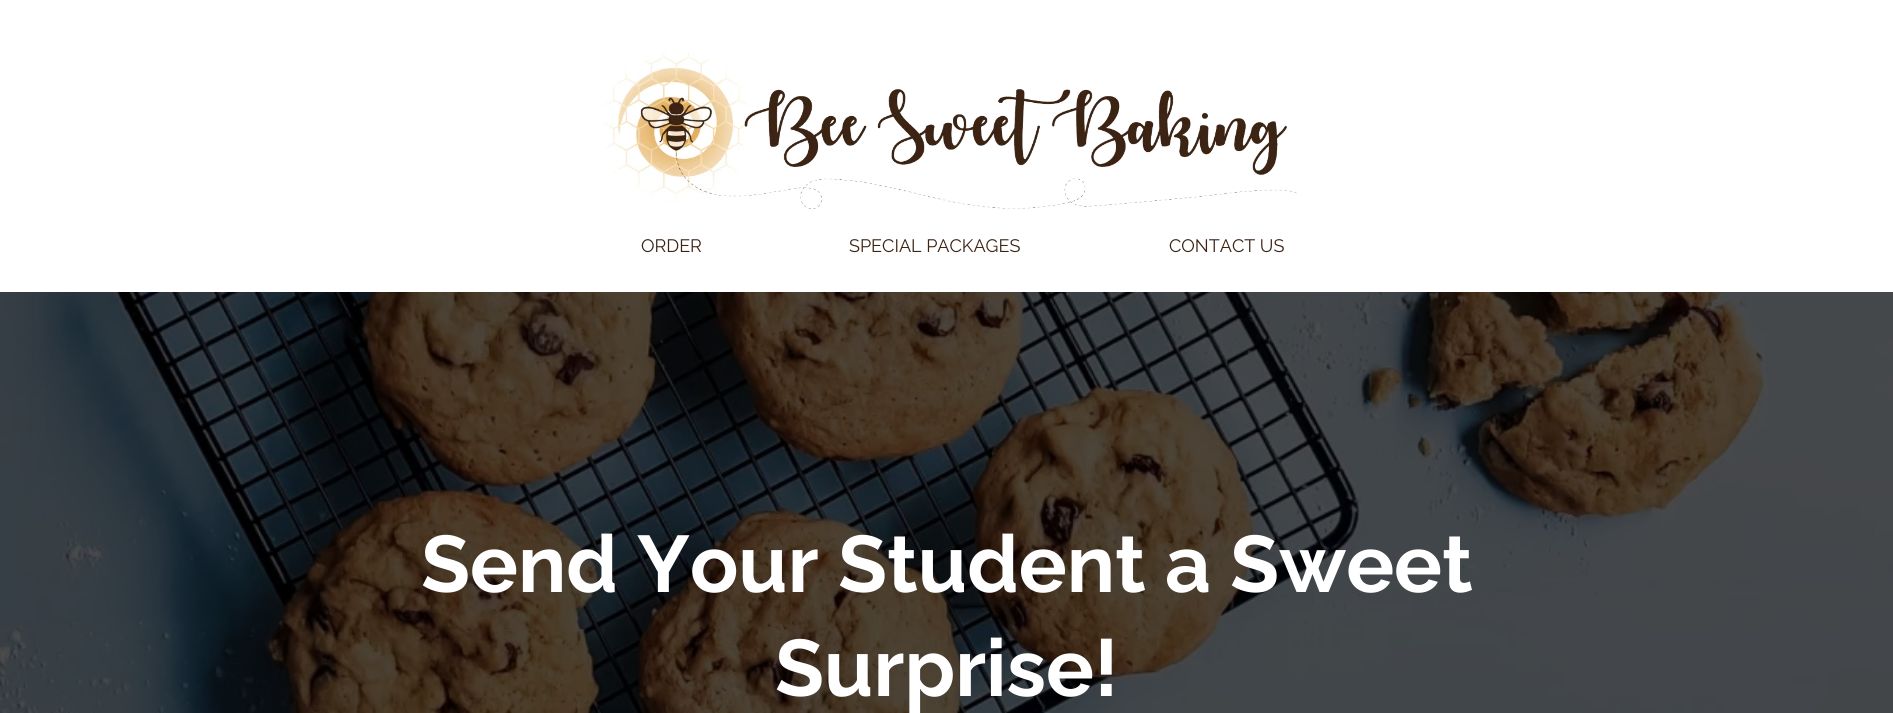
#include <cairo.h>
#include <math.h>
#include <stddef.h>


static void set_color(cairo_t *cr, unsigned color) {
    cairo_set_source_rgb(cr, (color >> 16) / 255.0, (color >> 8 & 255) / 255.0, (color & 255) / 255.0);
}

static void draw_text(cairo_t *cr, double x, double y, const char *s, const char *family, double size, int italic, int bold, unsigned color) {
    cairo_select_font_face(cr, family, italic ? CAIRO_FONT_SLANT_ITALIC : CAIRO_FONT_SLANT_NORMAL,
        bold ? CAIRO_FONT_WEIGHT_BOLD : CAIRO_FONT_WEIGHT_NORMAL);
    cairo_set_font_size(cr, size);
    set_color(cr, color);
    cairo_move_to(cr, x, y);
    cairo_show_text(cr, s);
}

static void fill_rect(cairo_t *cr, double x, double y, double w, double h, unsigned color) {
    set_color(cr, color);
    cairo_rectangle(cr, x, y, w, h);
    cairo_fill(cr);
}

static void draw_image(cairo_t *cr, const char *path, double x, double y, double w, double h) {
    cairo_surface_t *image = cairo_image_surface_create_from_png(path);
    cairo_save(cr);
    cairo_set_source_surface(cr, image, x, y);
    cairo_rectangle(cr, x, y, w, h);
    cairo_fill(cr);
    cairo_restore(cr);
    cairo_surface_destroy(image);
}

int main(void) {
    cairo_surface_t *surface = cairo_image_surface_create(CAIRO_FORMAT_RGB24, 1893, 713);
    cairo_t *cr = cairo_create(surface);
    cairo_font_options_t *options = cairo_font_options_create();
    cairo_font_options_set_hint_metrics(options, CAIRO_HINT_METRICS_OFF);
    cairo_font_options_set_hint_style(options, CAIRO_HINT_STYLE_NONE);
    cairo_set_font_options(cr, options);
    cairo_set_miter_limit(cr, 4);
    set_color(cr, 0xFFFFFF);
    cairo_paint(cr);
    draw_image(cr, "assets/img1.png", 603, 51, 694, 158);
    draw_text(cr, 641, 252, "ORDER", "Raleway", 18, 0, 0, 0x3C2415);
    draw_text(cr, 849, 252, "SPECIAL PACKAGES", "Raleway", 18, 0, 0, 0x3C2415);
    draw_text(cr, 1169, 252, "CONTACT US", "Raleway", 18, 0, 0, 0x3C2415);
    fill_rect(cr, 0, 292, 1893, 421, 0x000000);
    draw_image(cr, "assets/img2.png", 0, 292, 1893, 421);
    draw_text(cr, 421, 592, "Send Your Student a Sweet", "Raleway", 80, 0, 1, 0xFFFFFF);
    draw_text(cr, 775, 696, "Surprise!", "Raleway", 80, 0, 1, 0xFFFFFF);
    cairo_surface_write_to_png(surface, "output.png");
    cairo_font_options_destroy(options);
    cairo_destroy(cr);
    cairo_surface_destroy(surface);
    return 0;
}
